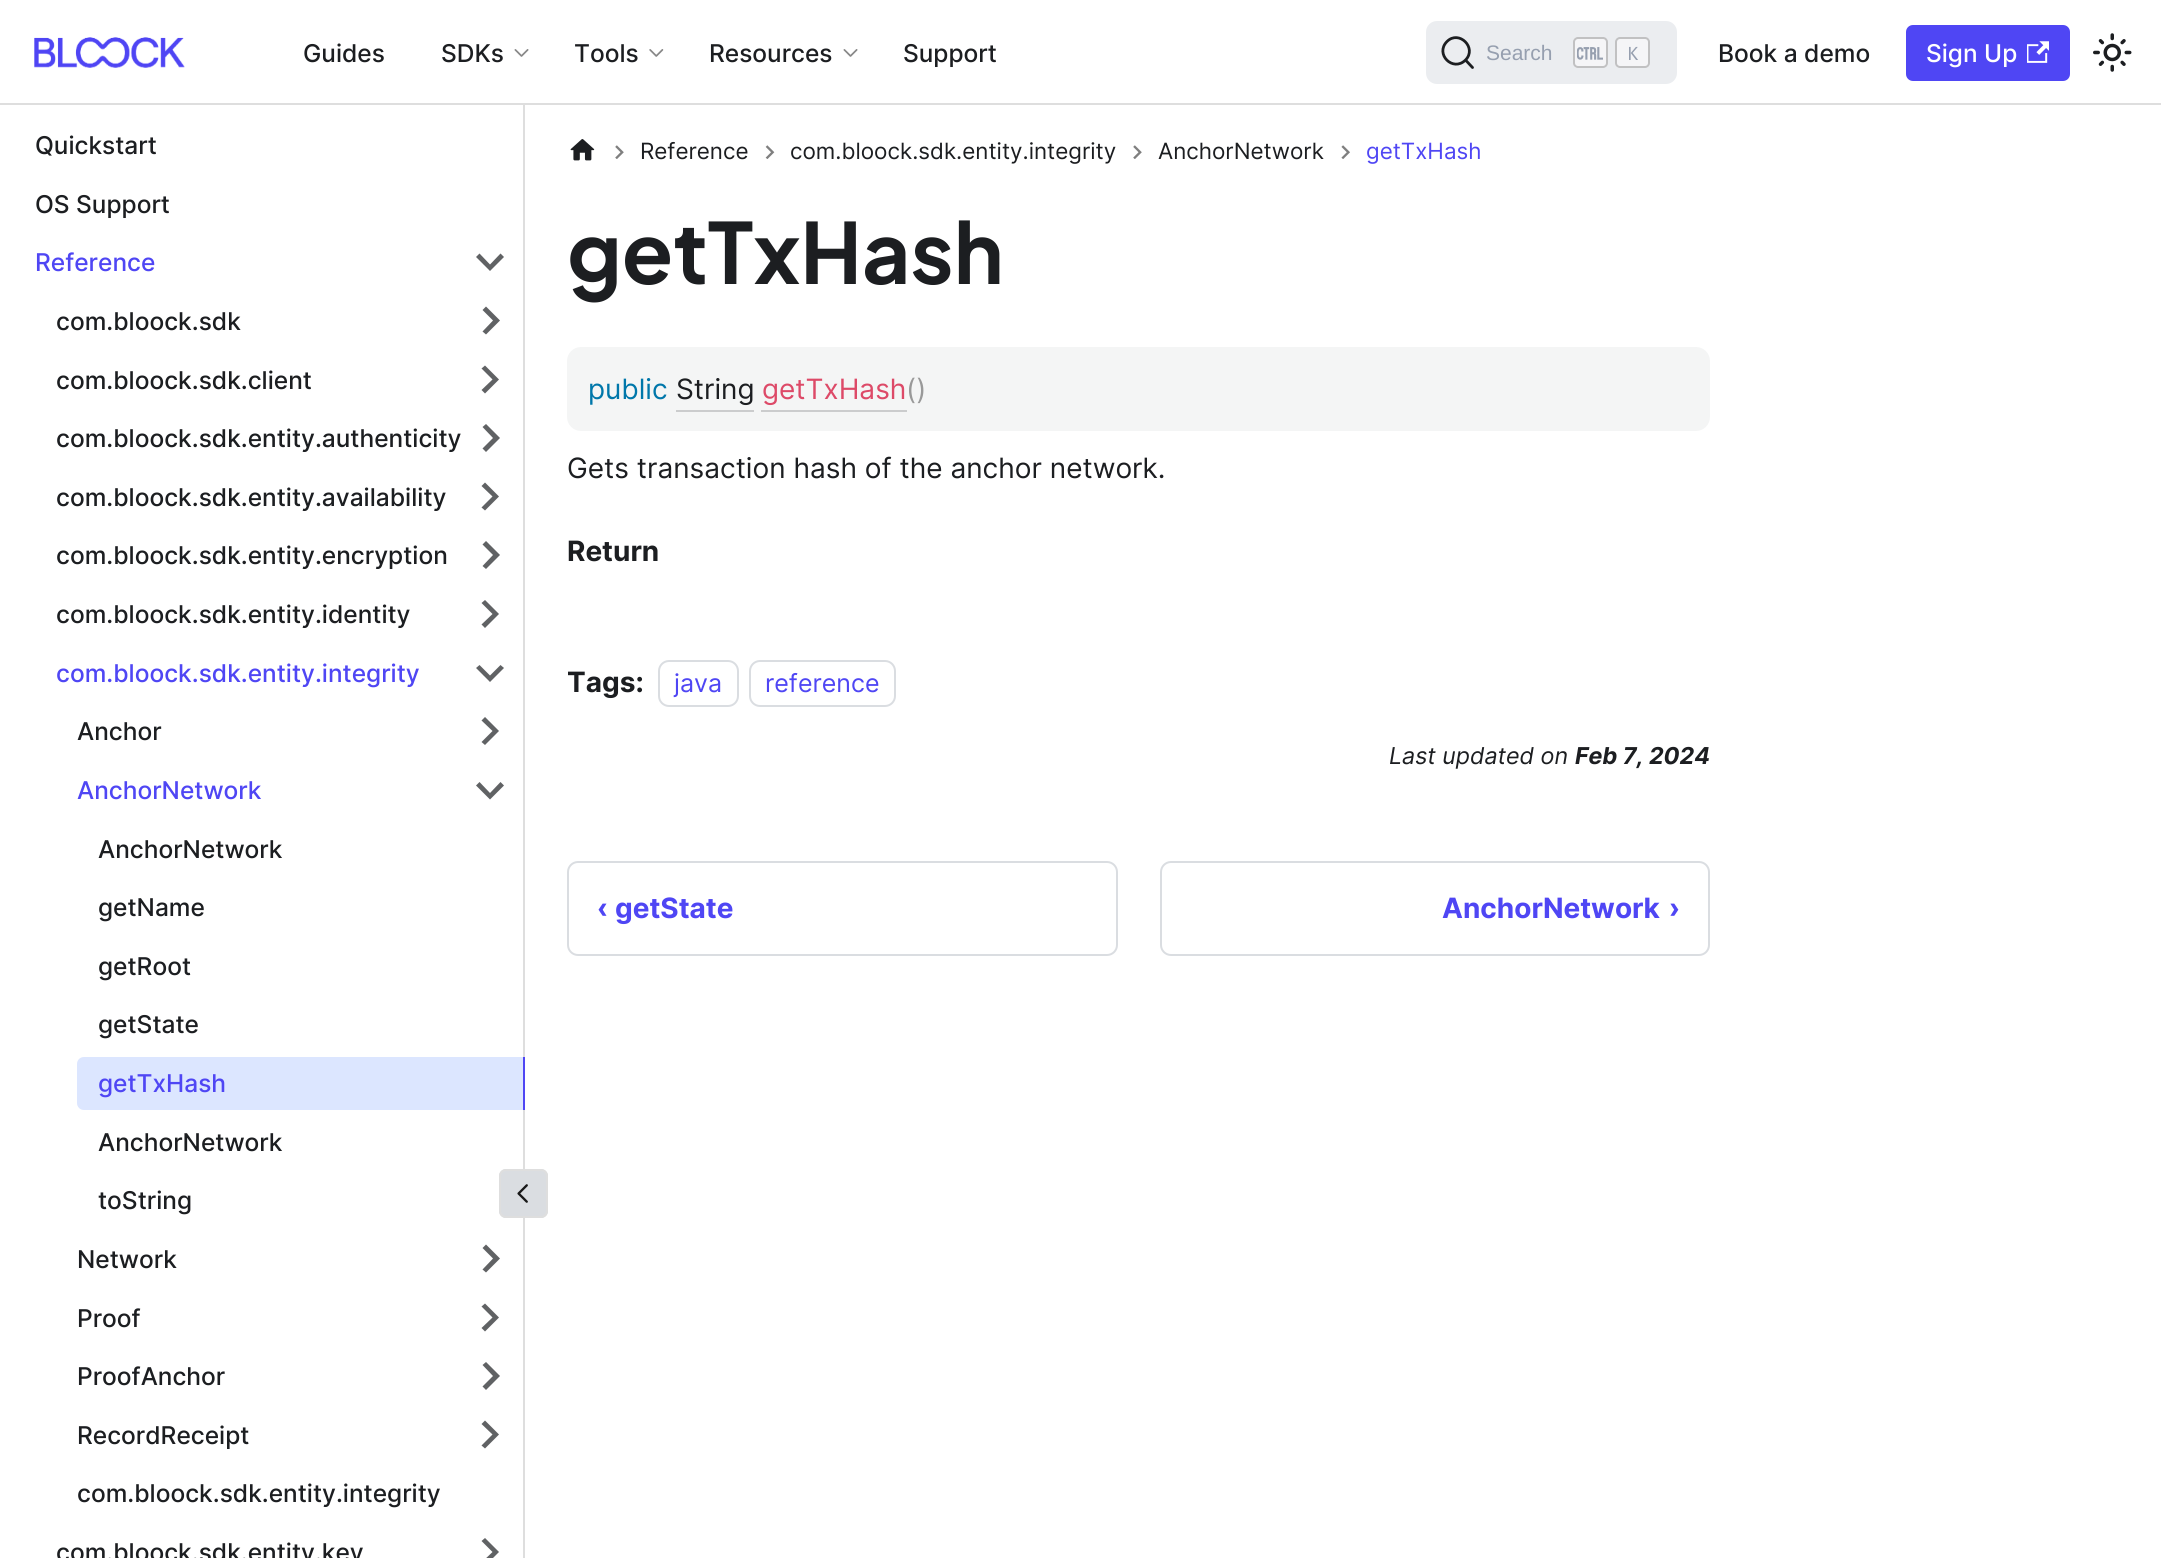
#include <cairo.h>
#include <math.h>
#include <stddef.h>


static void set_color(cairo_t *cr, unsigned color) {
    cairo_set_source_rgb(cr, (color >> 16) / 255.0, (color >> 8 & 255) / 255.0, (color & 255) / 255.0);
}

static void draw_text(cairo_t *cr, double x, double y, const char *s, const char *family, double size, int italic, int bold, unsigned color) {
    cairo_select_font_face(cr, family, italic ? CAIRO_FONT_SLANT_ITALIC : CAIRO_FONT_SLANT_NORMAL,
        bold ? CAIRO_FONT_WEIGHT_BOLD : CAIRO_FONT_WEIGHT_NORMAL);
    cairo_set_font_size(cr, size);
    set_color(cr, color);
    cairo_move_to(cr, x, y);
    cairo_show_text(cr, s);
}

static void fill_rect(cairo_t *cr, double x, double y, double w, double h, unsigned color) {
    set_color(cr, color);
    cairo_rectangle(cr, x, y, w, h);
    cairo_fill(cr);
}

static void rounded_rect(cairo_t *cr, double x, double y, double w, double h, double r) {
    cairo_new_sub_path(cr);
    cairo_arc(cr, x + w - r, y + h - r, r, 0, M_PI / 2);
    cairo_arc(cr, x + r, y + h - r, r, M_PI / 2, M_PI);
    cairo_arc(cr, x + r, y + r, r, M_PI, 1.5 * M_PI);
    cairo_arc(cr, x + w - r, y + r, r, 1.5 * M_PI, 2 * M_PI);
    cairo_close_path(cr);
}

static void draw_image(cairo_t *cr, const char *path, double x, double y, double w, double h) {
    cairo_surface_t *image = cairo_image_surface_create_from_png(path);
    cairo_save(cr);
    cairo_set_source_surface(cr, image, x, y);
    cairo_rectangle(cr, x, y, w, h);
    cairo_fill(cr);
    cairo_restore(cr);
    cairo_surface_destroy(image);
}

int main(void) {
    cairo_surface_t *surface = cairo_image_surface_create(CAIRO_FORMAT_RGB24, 2161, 1558);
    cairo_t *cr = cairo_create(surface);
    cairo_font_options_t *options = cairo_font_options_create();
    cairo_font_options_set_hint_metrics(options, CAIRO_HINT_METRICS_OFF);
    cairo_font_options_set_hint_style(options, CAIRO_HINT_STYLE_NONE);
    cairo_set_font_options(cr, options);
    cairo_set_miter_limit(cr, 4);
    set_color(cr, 0xFFFFFF);
    cairo_paint(cr);
    fill_rect(cr, 0, 103, 2161, 2, 0xDEDEDE);
    draw_image(cr, "assets/img1.png", 34, 37, 151, 31);
    draw_text(cr, 303, 62, "Guides", "Inter Medium", 24.5, 0, 0, 0x1C1E21);
    draw_text(cr, 441, 62, "SDKs", "Inter Medium", 24.5, 0, 0, 0x1C1E21);
    draw_image(cr, "assets/img2.png", 514, 49, 15, 8);
    draw_text(cr, 574, 62, "Tools", "Inter Medium", 24.5, 0, 0, 0x1C1E21);
    draw_image(cr, "assets/img3.png", 649, 49, 15, 8);
    draw_text(cr, 709, 62, "Resources", "Inter Medium", 24.5, 0, 0, 0x1C1E21);
    draw_image(cr, "assets/img2.png", 843, 49, 15, 8);
    draw_text(cr, 903, 62, "Support", "Inter Medium", 24.5, 0, 0, 0x1C1E21);
    set_color(cr, 0xEBEDF0);
    rounded_rect(cr, 1426, 21, 251, 63, 11);
    cairo_fill(cr);
    cairo_new_path(cr);
    cairo_move_to(cr, 1465.5, 60);
    cairo_line_to(cr, 1472.5, 67.5);
    cairo_line_to(cr, 1465.5, 60);
    cairo_curve_to(cr, 1453, 72.5, 1434.5, 54, 1447, 41.5);
    cairo_curve_to(cr, 1459, 29.5, 1477.5, 48, 1465.5, 60);
    cairo_close_path(cr);
    set_color(cr, 0x1C1E21);
    cairo_set_line_width(cr, 2.8);
    cairo_set_line_cap(cr, CAIRO_LINE_CAP_ROUND);
    cairo_set_line_join(cr, CAIRO_LINE_JOIN_ROUND);
    cairo_stroke(cr);
    draw_text(cr, 1486, 60, "Search", "Liberation Sans", 21, 0, 0, 0x969FAF);
    set_color(cr, 0xF5F5F7);
    rounded_rect(cr, 1573, 37, 35, 31, 5);
    cairo_fill(cr);
    rounded_rect(cr, 1574, 38, 33, 29, 4);
    cairo_set_source_rgba(cr, 0.278, 0.278, 0.278, 0.3);
    cairo_set_line_width(cr, 2);
    cairo_set_line_cap(cr, CAIRO_LINE_CAP_BUTT);
    cairo_set_line_join(cr, CAIRO_LINE_JOIN_MITER);
    cairo_stroke(cr);
    draw_image(cr, "assets/img4.png", 1577, 47, 26, 13);
    set_color(cr, 0xF5F5F7);
    rounded_rect(cr, 1615, 37, 35, 31, 5);
    cairo_fill(cr);
    rounded_rect(cr, 1616, 38, 33, 29, 4);
    cairo_set_source_rgba(cr, 0.278, 0.278, 0.278, 0.3);
    cairo_stroke(cr);
    draw_text(cr, 1627, 60, "K", "Fira Code", 19, 0, 0, 0x969FAF);
    draw_text(cr, 1718, 62, "Book a demo", "Inter Medium", 24.5, 0, 0, 0x1C1E21);
    set_color(cr, 0x4F46F4);
    rounded_rect(cr, 1906, 25, 164, 56, 7);
    cairo_fill(cr);
    draw_text(cr, 1926, 62, "Sign Up", "Inter Medium", 24.5, 0, 0, 0xFFFFFF);
    draw_image(cr, "assets/img5.png", 2027, 41, 22, 22);
    draw_image(cr, "assets/img6.png", 2093, 33, 39, 39);
    fill_rect(cr, 523, 105, 2, 1453, 0xDEDEDE);
    draw_text(cr, 35, 154, "Quickstart", "Inter Medium", 24.5, 0, 0, 0x1C1E21);
    draw_text(cr, 35, 213, "OS Support", "Inter Medium", 24.5, 0, 0, 0x1C1E21);
    draw_text(cr, 35, 271, "Reference", "Inter Medium", 24.5, 0, 0, 0x4F46F4);
    set_color(cr, 0x606264);
    cairo_new_path(cr);
    cairo_move_to(cr, 500.5, 253.5);
    cairo_line_to(cr, 490, 264.5);
    cairo_line_to(cr, 479.5, 253.5);
    cairo_line_to(cr, 476, 257);
    cairo_line_to(cr, 490, 271);
    cairo_line_to(cr, 504, 257);
    cairo_close_path(cr);
    cairo_fill(cr);
    draw_text(cr, 56, 330, "com.bloock.sdk", "Inter Medium", 24.5, 0, 0, 0x1C1E21);
    set_color(cr, 0x606264);
    cairo_new_path(cr);
    cairo_move_to(cr, 482.5, 310);
    cairo_line_to(cr, 493, 320.5);
    cairo_line_to(cr, 482.5, 331.5);
    cairo_line_to(cr, 486, 334.5);
    cairo_line_to(cr, 500, 320.5);
    cairo_line_to(cr, 486, 306.5);
    cairo_close_path(cr);
    cairo_fill(cr);
    draw_text(cr, 56, 389, "com.bloock.sdk.client", "Inter Medium", 24.5, 0, 0, 0x1C1E21);
    set_color(cr, 0x606264);
    cairo_new_path(cr);
    cairo_move_to(cr, 481.5, 368.5);
    cairo_line_to(cr, 492.5, 379.5);
    cairo_line_to(cr, 481.5, 390);
    cairo_line_to(cr, 485, 393.5);
    cairo_line_to(cr, 499, 379.5);
    cairo_line_to(cr, 485, 365.5);
    cairo_close_path(cr);
    cairo_fill(cr);
    draw_text(cr, 56, 447, "com.bloock.sdk.entity.authenticity", "Inter Medium", 24.5, 0, 0, 0x1C1E21);
    set_color(cr, 0x606264);
    cairo_new_path(cr);
    cairo_move_to(cr, 482.5, 427);
    cairo_line_to(cr, 493, 438);
    cairo_line_to(cr, 482.5, 448.5);
    cairo_line_to(cr, 486, 452);
    cairo_line_to(cr, 500, 438);
    cairo_line_to(cr, 486, 424);
    cairo_close_path(cr);
    cairo_fill(cr);
    draw_text(cr, 56, 506, "com.bloock.sdk.entity.availability", "Inter Medium", 24.5, 0, 0, 0x1C1E21);
    set_color(cr, 0x606264);
    cairo_new_path(cr);
    cairo_move_to(cr, 481.5, 486);
    cairo_line_to(cr, 492.5, 496.5);
    cairo_line_to(cr, 481.5, 507.5);
    cairo_line_to(cr, 485, 510.5);
    cairo_line_to(cr, 499, 496.5);
    cairo_line_to(cr, 485, 482.5);
    cairo_close_path(cr);
    cairo_fill(cr);
    draw_text(cr, 56, 564, "com.bloock.sdk.entity.encryption", "Inter Medium", 24.5, 0, 0, 0x1C1E21);
    set_color(cr, 0x606264);
    cairo_new_path(cr);
    cairo_move_to(cr, 482.5, 544.5);
    cairo_line_to(cr, 493, 555);
    cairo_line_to(cr, 482.5, 566);
    cairo_line_to(cr, 486, 569);
    cairo_line_to(cr, 500, 555);
    cairo_line_to(cr, 486, 541);
    cairo_close_path(cr);
    cairo_fill(cr);
    draw_text(cr, 56, 623, "com.bloock.sdk.entity.identity", "Inter Medium", 24.5, 0, 0, 0x1C1E21);
    set_color(cr, 0x606264);
    cairo_new_path(cr);
    cairo_move_to(cr, 481.5, 603);
    cairo_line_to(cr, 492.5, 614);
    cairo_line_to(cr, 481.5, 624.5);
    cairo_line_to(cr, 485, 628);
    cairo_line_to(cr, 499, 614);
    cairo_line_to(cr, 485, 600);
    cairo_close_path(cr);
    cairo_fill(cr);
    draw_text(cr, 56, 682, "com.bloock.sdk.entity.integrity", "Inter Medium", 24.5, 0, 0, 0x4F46F4);
    set_color(cr, 0x606264);
    cairo_new_path(cr);
    cairo_move_to(cr, 500.5, 665);
    cairo_line_to(cr, 490, 675.5);
    cairo_line_to(cr, 479.5, 665);
    cairo_line_to(cr, 476, 668);
    cairo_line_to(cr, 490, 682);
    cairo_line_to(cr, 504, 668);
    cairo_close_path(cr);
    cairo_fill(cr);
    draw_text(cr, 77, 740, "Anchor", "Inter Medium", 24.5, 0, 0, 0x1C1E21);
    set_color(cr, 0x606264);
    cairo_new_path(cr);
    cairo_move_to(cr, 481.5, 720.5);
    cairo_line_to(cr, 492.5, 731);
    cairo_line_to(cr, 481.5, 742);
    cairo_line_to(cr, 485, 745);
    cairo_line_to(cr, 499, 731);
    cairo_line_to(cr, 485, 717);
    cairo_close_path(cr);
    cairo_fill(cr);
    draw_text(cr, 77, 799, "AnchorNetwork", "Inter Medium", 24.5, 0, 0, 0x4F46F4);
    set_color(cr, 0x606264);
    cairo_new_path(cr);
    cairo_move_to(cr, 500.5, 782);
    cairo_line_to(cr, 490, 793);
    cairo_line_to(cr, 479.5, 782);
    cairo_line_to(cr, 476, 785.5);
    cairo_line_to(cr, 490, 799.5);
    cairo_line_to(cr, 504, 785.5);
    cairo_close_path(cr);
    cairo_fill(cr);
    draw_text(cr, 98, 858, "AnchorNetwork", "Inter Medium", 24.5, 0, 0, 0x1C1E21);
    draw_text(cr, 98, 916, "getName", "Inter Medium", 24.5, 0, 0, 0x1C1E21);
    draw_text(cr, 98, 975, "getRoot", "Inter Medium", 24.5, 0, 0, 0x1C1E21);
    draw_text(cr, 98, 1033, "getState", "Inter Medium", 24.5, 0, 0, 0x1C1E21);
    cairo_set_source_rgba(cr, 0.129, 0.376, 0.992, 0.16);
    cairo_new_path(cr);
    cairo_move_to(cr, 84, 1057);
    cairo_line_to(cr, 525, 1057);
    cairo_line_to(cr, 525, 1110);
    cairo_line_to(cr, 84, 1110);
    cairo_curve_to(cr, 80, 1110, 77, 1107, 77, 1103);
    cairo_line_to(cr, 77, 1064);
    cairo_curve_to(cr, 77, 1060, 80, 1057, 84, 1057);
    cairo_close_path(cr);
    cairo_fill(cr);
    fill_rect(cr, 523, 1057, 2, 53, 0x4F46F4);
    draw_text(cr, 98, 1092, "getTxHash", "Inter Medium", 24.5, 0, 0, 0x4F46F4);
    draw_text(cr, 98, 1151, "AnchorNetwork", "Inter Medium", 24.5, 0, 0, 0x1C1E21);
    draw_text(cr, 98, 1209, "toString", "Inter Medium", 24.5, 0, 0, 0x1C1E21);
    draw_text(cr, 77, 1268, "Network", "Inter Medium", 24.5, 0, 0, 0x1C1E21);
    set_color(cr, 0x606264);
    cairo_new_path(cr);
    cairo_move_to(cr, 482.5, 1248);
    cairo_line_to(cr, 493, 1258.5);
    cairo_line_to(cr, 482.5, 1269.5);
    cairo_line_to(cr, 486, 1272.5);
    cairo_line_to(cr, 500, 1258.5);
    cairo_line_to(cr, 486, 1244.5);
    cairo_close_path(cr);
    cairo_fill(cr);
    draw_text(cr, 77, 1327, "Proof", "Inter Medium", 24.5, 0, 0, 0x1C1E21);
    set_color(cr, 0x606264);
    cairo_new_path(cr);
    cairo_move_to(cr, 481.5, 1306.5);
    cairo_line_to(cr, 492.5, 1317.5);
    cairo_line_to(cr, 481.5, 1328);
    cairo_line_to(cr, 485, 1331.5);
    cairo_line_to(cr, 499, 1317.5);
    cairo_line_to(cr, 485, 1303.5);
    cairo_close_path(cr);
    cairo_fill(cr);
    draw_text(cr, 77, 1385, "ProofAnchor", "Inter Medium", 24.5, 0, 0, 0x1C1E21);
    set_color(cr, 0x606264);
    cairo_new_path(cr);
    cairo_move_to(cr, 482.5, 1365);
    cairo_line_to(cr, 493, 1376);
    cairo_line_to(cr, 482.5, 1386.5);
    cairo_line_to(cr, 486, 1390);
    cairo_line_to(cr, 500, 1376);
    cairo_line_to(cr, 486, 1362);
    cairo_close_path(cr);
    cairo_fill(cr);
    draw_text(cr, 77, 1444, "RecordReceipt", "Inter Medium", 24.5, 0, 0, 0x1C1E21);
    set_color(cr, 0x606264);
    cairo_new_path(cr);
    cairo_move_to(cr, 481.5, 1424);
    cairo_line_to(cr, 492.5, 1434.5);
    cairo_line_to(cr, 481.5, 1445.5);
    cairo_line_to(cr, 485, 1448.5);
    cairo_line_to(cr, 499, 1434.5);
    cairo_line_to(cr, 485, 1420.5);
    cairo_close_path(cr);
    cairo_fill(cr);
    draw_text(cr, 77, 1502, "com.bloock.sdk.entity.integrity", "Inter Medium", 24.5, 0, 0, 0x1C1E21);
    draw_text(cr, 56, 1561, "com.bloock.sdk.entity.key", "Inter Medium", 24.5, 0, 0, 0x1C1E21);
    set_color(cr, 0x606264);
    cairo_new_path(cr);
    cairo_move_to(cr, 481.5, 1541);
    cairo_line_to(cr, 492.5, 1552);
    cairo_line_to(cr, 481.5, 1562.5);
    cairo_line_to(cr, 485, 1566);
    cairo_line_to(cr, 499, 1552);
    cairo_line_to(cr, 485, 1538);
    cairo_close_path(cr);
    cairo_fill(cr);
    set_color(cr, 0xDADDE1);
    rounded_rect(cr, 499, 1169, 49, 49, 7);
    cairo_fill(cr);
    draw_image(cr, "assets/img7.png", 517, 1184, 11, 19);
    rounded_rect(cr, 500, 1170, 47, 47, 6);
    set_color(cr, 0xDEDEDE);
    cairo_stroke(cr);
    draw_image(cr, "assets/img8.png", 570, 139, 25, 22);
    draw_image(cr, "assets/img9.png", 615, 145, 9, 14);
    draw_text(cr, 640, 159, "Reference", "Inter", 22.4, 0, 0, 0x1C1E21);
    draw_image(cr, "assets/img10.png", 765, 145, 10, 14);
    draw_text(cr, 790, 159, "com.bloock.sdk.entity.integrity", "Inter", 22.4, 0, 0, 0x1C1E21);
    draw_image(cr, "assets/img9.png", 1133, 145, 9, 14);
    draw_text(cr, 1158, 159, "AnchorNetwork", "Inter", 22.4, 0, 0, 0x1C1E21);
    draw_image(cr, "assets/img11.png", 1341, 145, 9, 14);
    draw_text(cr, 1366, 159, "getTxHash", "Inter", 22.4, 0, 0, 0x4F46F4);
    draw_text(cr, 567, 284, "getTxHash", "Plus Jakarta Sans", 84, 0, 1, 0x1C1E21);
    set_color(cr, 0xF4F5F5);
    rounded_rect(cr, 567, 347, 1143, 84, 14);
    cairo_fill(cr);
    draw_text(cr, 588, 399, "public", "Inter", 28, 0, 0, 0x0077AA);
    draw_text(cr, 676, 399, "String", "Inter", 28, 0, 0, 0x1C1E21);
    fill_rect(cr, 676, 410, 78, 2, 0xCBCCCD);
    draw_text(cr, 762, 399, "getTxHash", "Inter", 28, 0, 0, 0xDD4A68);
    fill_rect(cr, 761, 410, 146, 2, 0xCBCCCD);
    draw_text(cr, 906, 399, "()", "Inter", 28, 0, 0, 0x999999);
    draw_text(cr, 567, 478, "Gets transaction hash of the anchor network.", "Inter", 28, 0, 0, 0x1C1E21);
    draw_text(cr, 567, 561, "Return", "Inter", 28, 0, 1, 0x1C1E21);
    draw_text(cr, 567, 692, "Tags:", "Inter", 28, 0, 1, 0x1C1E21);
    rounded_rect(cr, 659, 661, 79, 45, 10);
    set_color(cr, 0xDADDE1);
    cairo_stroke(cr);
    draw_text(cr, 674, 692, "java", "Inter", 25, 0, 0, 0x4F46F4);
    rounded_rect(cr, 750, 661, 145, 45, 10);
    set_color(cr, 0xDADDE1);
    cairo_stroke(cr);
    draw_text(cr, 765, 692, "reference", "Inter", 25, 0, 0, 0x4F46F4);
    draw_text(cr, 1389, 764, "Last updated on", "Inter", 23.25, 1, 0, 0x1C1E21);
    draw_text(cr, 1575, 764, "Feb 7, 2024", "Inter", 23.25, 1, 1, 0x1C1E21);
    rounded_rect(cr, 568, 862, 549, 93, 10);
    set_color(cr, 0xDADDE1);
    cairo_stroke(cr);
    draw_text(cr, 597, 918, "‹", "Inter", 28, 0, 1, 0x4F46F4);
    draw_text(cr, 615, 918, "getState", "Inter", 28, 0, 1, 0x4F46F4);
    rounded_rect(cr, 1161, 862, 548, 93, 10);
    set_color(cr, 0xDADDE1);
    cairo_stroke(cr);
    draw_text(cr, 1442, 918, "AnchorNetwork", "Inter", 28, 0, 1, 0x4F46F4);
    draw_text(cr, 1669, 918, "›", "Inter", 28, 0, 1, 0x4F46F4);
    cairo_surface_write_to_png(surface, "output.png");
    cairo_font_options_destroy(options);
    cairo_destroy(cr);
    cairo_surface_destroy(surface);
    return 0;
}
